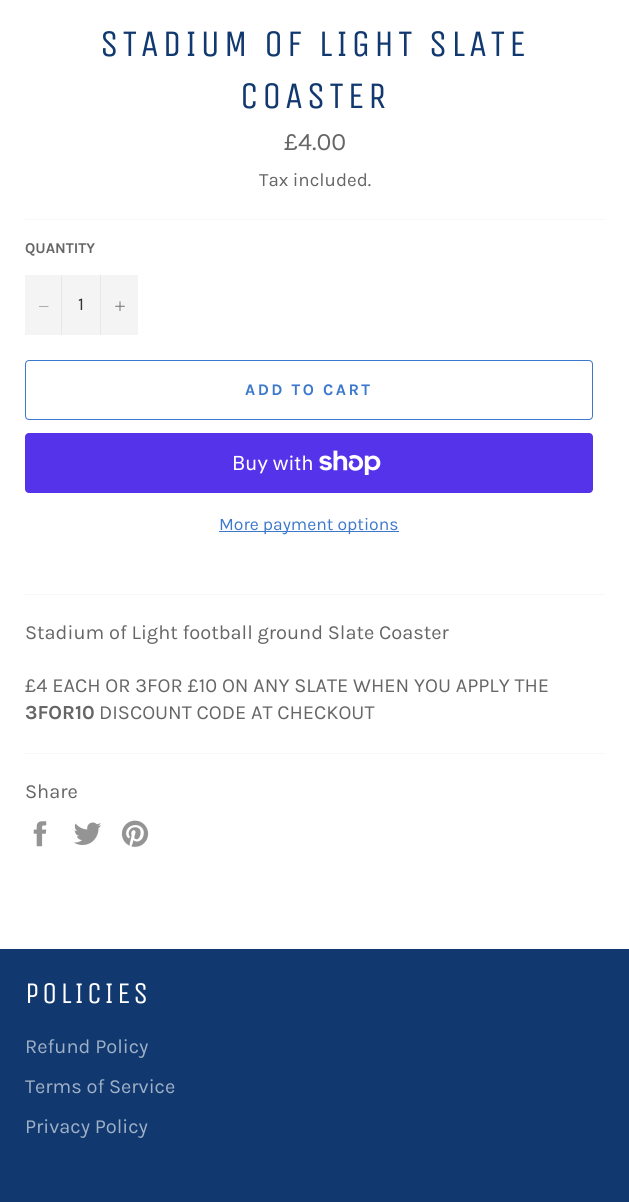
#include <cairo.h>
#include <math.h>
#include <stddef.h>


static void set_color(cairo_t *cr, unsigned color) {
    cairo_set_source_rgb(cr, (color >> 16) / 255.0, (color >> 8 & 255) / 255.0, (color & 255) / 255.0);
}

static void draw_text(cairo_t *cr, double x, double y, const char *s, const char *family, double size, int italic, int bold, unsigned color) {
    cairo_select_font_face(cr, family, italic ? CAIRO_FONT_SLANT_ITALIC : CAIRO_FONT_SLANT_NORMAL,
        bold ? CAIRO_FONT_WEIGHT_BOLD : CAIRO_FONT_WEIGHT_NORMAL);
    cairo_set_font_size(cr, size);
    set_color(cr, color);
    cairo_move_to(cr, x, y);
    cairo_show_text(cr, s);
}

static void draw_spaced(cairo_t *cr, double x, double y, const char *s, double letter, double word) {
    cairo_move_to(cr, x, y);
    while (*s) {
        char ch[5] = {0};
        int n = 0;
        do ch[n++] = *s++; while ((*s & 0xC0) == 0x80);
        cairo_show_text(cr, ch);
        cairo_rel_move_to(cr, letter + word * (*ch == ' '), 0);
    }
}

static void fill_rect(cairo_t *cr, double x, double y, double w, double h, unsigned color) {
    set_color(cr, color);
    cairo_rectangle(cr, x, y, w, h);
    cairo_fill(cr);
}

static void rounded_rect(cairo_t *cr, double x, double y, double w, double h, double r) {
    cairo_new_sub_path(cr);
    cairo_arc(cr, x + w - r, y + h - r, r, 0, M_PI / 2);
    cairo_arc(cr, x + r, y + h - r, r, M_PI / 2, M_PI);
    cairo_arc(cr, x + r, y + r, r, M_PI, 1.5 * M_PI);
    cairo_arc(cr, x + w - r, y + r, r, 1.5 * M_PI, 2 * M_PI);
    cairo_close_path(cr);
}

static void draw_image(cairo_t *cr, const char *path, double x, double y, double w, double h) {
    cairo_surface_t *image = cairo_image_surface_create_from_png(path);
    cairo_save(cr);
    cairo_set_source_surface(cr, image, x, y);
    cairo_rectangle(cr, x, y, w, h);
    cairo_fill(cr);
    cairo_restore(cr);
    cairo_surface_destroy(image);
}

int main(void) {
    cairo_surface_t *surface = cairo_image_surface_create(CAIRO_FORMAT_RGB24, 629, 1202);
    cairo_t *cr = cairo_create(surface);
    cairo_font_options_t *options = cairo_font_options_create();
    cairo_font_options_set_hint_metrics(options, CAIRO_HINT_METRICS_OFF);
    cairo_font_options_set_hint_style(options, CAIRO_HINT_STYLE_NONE);
    cairo_set_font_options(cr, options);
    cairo_set_miter_limit(cr, 4);
    set_color(cr, 0xFFFFFF);
    cairo_paint(cr);
    cairo_select_font_face(cr, "Unica One", CAIRO_FONT_SLANT_NORMAL, CAIRO_FONT_WEIGHT_NORMAL);
    cairo_set_font_size(cr, 37.5);
    set_color(cr, 0x113970);
    draw_spaced(cr, 100, 56, "STADIUM OF LIGHT SLATE", 3.75, 0);
    draw_spaced(cr, 240, 108, "COASTER", 3.75, 0);
    draw_text(cr, 284, 150, "£4.00", "Karla", 25, 0, 0, 0x666666);
    draw_text(cr, 259, 186, "Tax included.", "Karla", 18.75, 0, 0, 0x666666);
    fill_rect(cr, 25, 219, 580, 1, 0xF7F7F7);
    draw_text(cr, 25, 253, "QUANTITY", "Karla", 15, 0, 1, 0x666666);
    fill_rect(cr, 25, 275, 113, 60, 0xF4F4F4);
    fill_rect(cr, 61, 275, 1, 60, 0xE7E7E7);
    set_color(cr, 0x666666);
    cairo_set_fill_rule(cr, CAIRO_FILL_RULE_EVEN_ODD);
    cairo_new_path(cr);
    cairo_move_to(cr, 48.5, 306);
    cairo_line_to(cr, 48.5, 306.5);
    cairo_line_to(cr, 39, 306.5);
    cairo_line_to(cr, 39, 306);
    cairo_close_path(cr);
    cairo_fill(cr);
    draw_text(cr, 78, 310, "1", "Karla", 18, 0, 0, 0x333333);
    fill_rect(cr, 100, 275, 1, 60, 0xE7E7E7);
    draw_image(cr, "assets/img1.png", 115, 301, 10, 10);
    rounded_rect(cr, 25.5, 360.5, 567, 59, 3.5);
    set_color(cr, 0x3C78CC);
    cairo_set_line_width(cr, 1);
    cairo_stroke(cr);
    cairo_select_font_face(cr, "Karla", CAIRO_FONT_SLANT_NORMAL, CAIRO_FONT_WEIGHT_BOLD);
    cairo_set_font_size(cr, 16.25);
    draw_spaced(cr, 245, 395, "ADD TO CART", 2.5, 0);
    set_color(cr, 0x5433EB);
    rounded_rect(cr, 25, 433, 568, 60, 4);
    cairo_fill(cr);
    draw_text(cr, 232, 470, "Buy with", "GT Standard", 20, 0, 0, 0xFFFFFF);
    draw_image(cr, "assets/img2.png", 319, 450, 62, 25);
    fill_rect(cr, 219, 531, 180, 1, 0x3C78CC);
    draw_text(cr, 219, 530, "More payment options", "Karla", 17.5, 0, 0, 0x3C78CC);
    fill_rect(cr, 25, 594, 580, 1, 0xF7F7F7);
    draw_text(cr, 25, 639, "Stadium of Light football ground Slate Coaster", "Karla", 20, 0, 0, 0x666666);
    draw_text(cr, 25, 692, "£4 EACH OR 3FOR £10 ON ANY SLATE WHEN YOU APPLY THE", "Karla", 20, 0, 0, 0x666666);
    draw_text(cr, 25, 719, "3FOR10", "Karla", 20, 0, 1, 0x666666);
    draw_text(cr, 99, 719, "DISCOUNT CODE AT CHECKOUT", "Karla", 20, 0, 0, 0x666666);
    fill_rect(cr, 25, 753, 580, 1, 0xF7F7F7);
    draw_text(cr, 25, 798, "Share", "Karla", 20, 0, 0, 0x666666);
    draw_image(cr, "assets/img3.png", 33, 821, 14, 26);
    draw_image(cr, "assets/img4.png", 74, 822, 28, 23);
    draw_image(cr, "assets/img5.png", 121, 820, 28, 27);
    fill_rect(cr, 0, 949, 629, 253, 0x113970);
    cairo_select_font_face(cr, "Unica One", CAIRO_FONT_SLANT_NORMAL, CAIRO_FONT_WEIGHT_NORMAL);
    cairo_set_font_size(cr, 30);
    set_color(cr, 0xFFFFFF);
    draw_spaced(cr, 25, 1003, "POLICIES", 3, 0);
    draw_text(cr, 25, 1053, "Refund Policy", "Karla", 20, 0, 0, 0xA0B0C6);
    draw_text(cr, 25, 1093, "Terms of Service", "Karla", 20, 0, 0, 0xA0B0C6);
    draw_text(cr, 25, 1133, "Privacy Policy", "Karla", 20, 0, 0, 0xA0B0C6);
    cairo_surface_write_to_png(surface, "output.png");
    cairo_font_options_destroy(options);
    cairo_destroy(cr);
    cairo_surface_destroy(surface);
    return 0;
}
